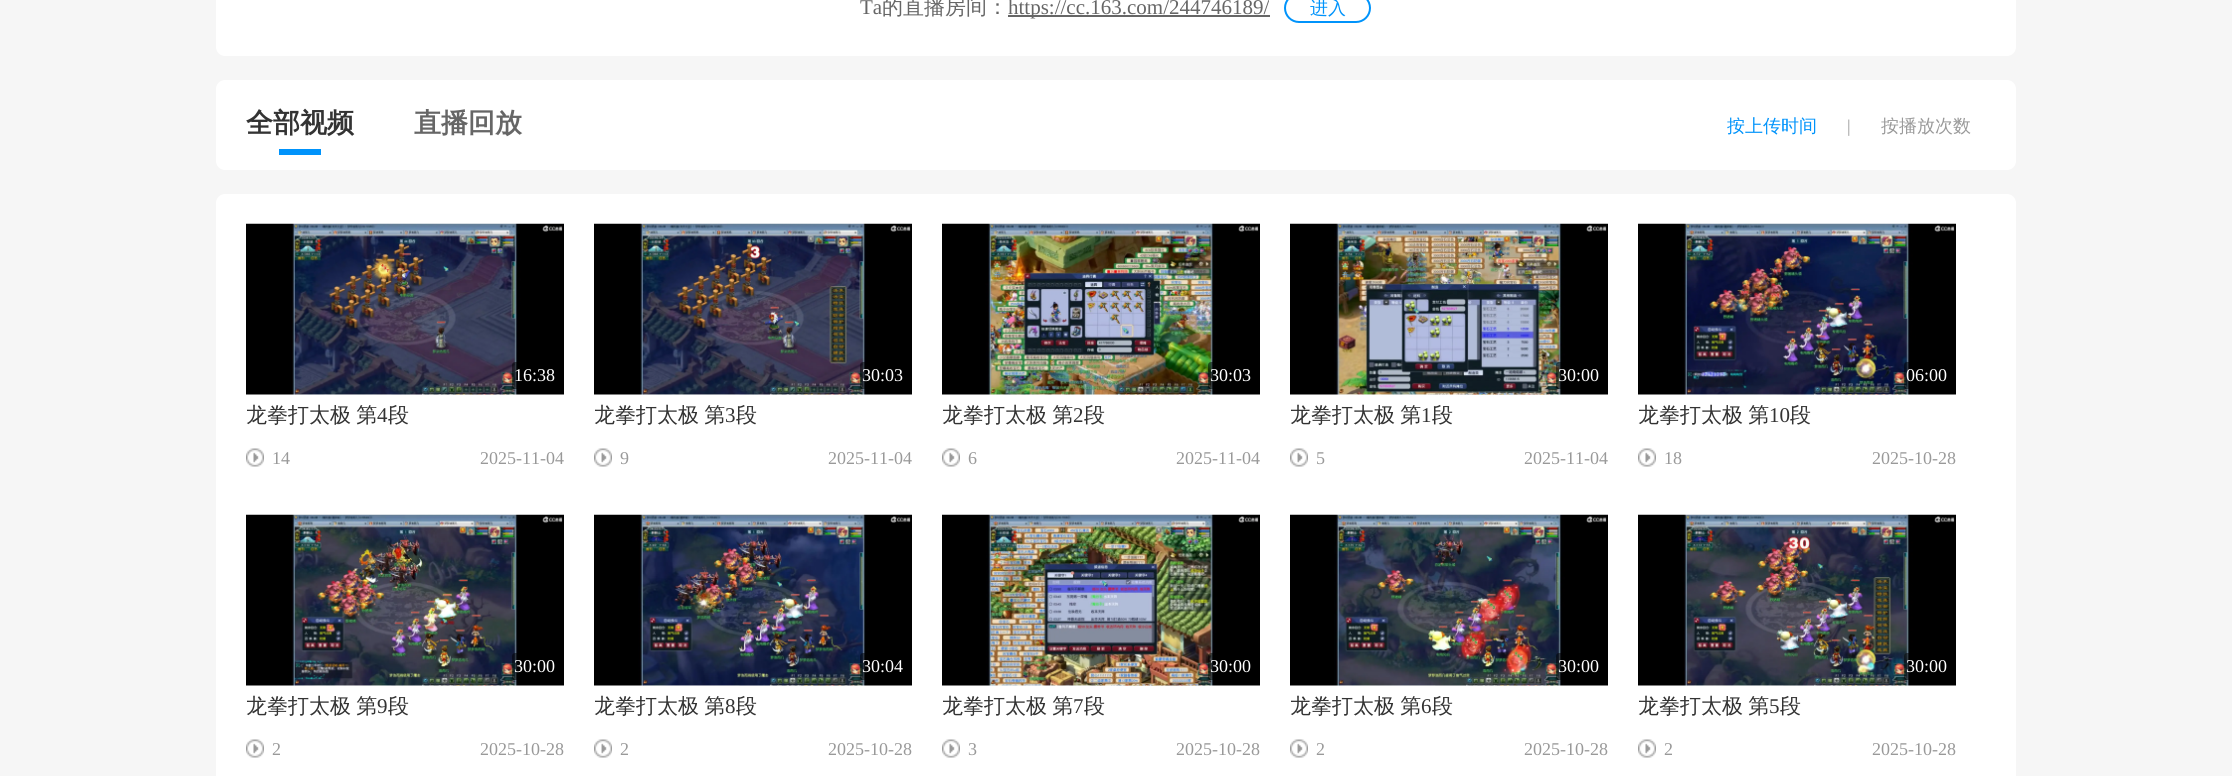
#include <cairo.h>
#include <math.h>
#include <stddef.h>


static void set_color(cairo_t *cr, unsigned color) {
    cairo_set_source_rgb(cr, (color >> 16) / 255.0, (color >> 8 & 255) / 255.0, (color & 255) / 255.0);
}

static void draw_text(cairo_t *cr, double x, double y, const char *s, const char *family, double size, int italic, int bold, unsigned color) {
    cairo_select_font_face(cr, family, italic ? CAIRO_FONT_SLANT_ITALIC : CAIRO_FONT_SLANT_NORMAL,
        bold ? CAIRO_FONT_WEIGHT_BOLD : CAIRO_FONT_WEIGHT_NORMAL);
    cairo_set_font_size(cr, size);
    set_color(cr, color);
    cairo_move_to(cr, x, y);
    cairo_show_text(cr, s);
}

static void draw_spaced(cairo_t *cr, double x, double y, const char *s, double letter, double word) {
    cairo_move_to(cr, x, y);
    while (*s) {
        char ch[5] = {0};
        int n = 0;
        do ch[n++] = *s++; while ((*s & 0xC0) == 0x80);
        cairo_show_text(cr, ch);
        cairo_rel_move_to(cr, letter + word * (*ch == ' '), 0);
    }
}

static void fill_rect(cairo_t *cr, double x, double y, double w, double h, unsigned color) {
    set_color(cr, color);
    cairo_rectangle(cr, x, y, w, h);
    cairo_fill(cr);
}

static void rounded_rect(cairo_t *cr, double x, double y, double w, double h, double r) {
    cairo_new_sub_path(cr);
    cairo_arc(cr, x + w - r, y + h - r, r, 0, M_PI / 2);
    cairo_arc(cr, x + r, y + h - r, r, M_PI / 2, M_PI);
    cairo_arc(cr, x + r, y + r, r, M_PI, 1.5 * M_PI);
    cairo_arc(cr, x + w - r, y + r, r, 1.5 * M_PI, 2 * M_PI);
    cairo_close_path(cr);
}

static void draw_image(cairo_t *cr, const char *path, double x, double y, double w, double h) {
    cairo_surface_t *image = cairo_image_surface_create_from_png(path);
    cairo_save(cr);
    cairo_set_source_surface(cr, image, x, y);
    cairo_rectangle(cr, x, y, w, h);
    cairo_fill(cr);
    cairo_restore(cr);
    cairo_surface_destroy(image);
}

int main(void) {
    cairo_surface_t *surface = cairo_image_surface_create(CAIRO_FORMAT_RGB24, 2232, 776);
    cairo_t *cr = cairo_create(surface);
    cairo_font_options_t *options = cairo_font_options_create();
    cairo_font_options_set_hint_metrics(options, CAIRO_HINT_METRICS_OFF);
    cairo_font_options_set_hint_style(options, CAIRO_HINT_STYLE_NONE);
    cairo_set_font_options(cr, options);
    cairo_set_miter_limit(cr, 4);
    set_color(cr, 0xF6F6F6);
    cairo_paint(cr);
    set_color(cr, 0xFFFFFF);
    rounded_rect(cr, 216, -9, 1800, 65, 9);
    cairo_fill(cr);
    draw_text(cr, 860, 14, "Ta", "Liberation Serif", 21, 0, 0, 0x666666);
    draw_text(cr, 882, 14, "的直播房间：", "WenQuanYi Zen Hei Medium", 21, 0, 0, 0x666666);
    fill_rect(cr, 1008, 15, 262, 2, 0x666666);
    draw_text(cr, 1008, 14, "https://cc.163.com/244746189/", "Liberation Serif", 21, 0, 0, 0x666666);
    rounded_rect(cr, 1285, -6, 85, 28, 14);
    set_color(cr, 0x0093FB);
    cairo_stroke(cr);
    draw_text(cr, 1310, 14, "进入", "WenQuanYi Zen Hei Medium", 18, 0, 0, 0x0093FB);
    set_color(cr, 0xFFFFFF);
    rounded_rect(cr, 216, 80, 1800, 90, 9);
    cairo_fill(cr);
    draw_text(cr, 246, 132, "全部视频", "WenQuanYi Zen Hei", 27, 0, 1, 0x333333);
    fill_rect(cr, 279, 149, 42, 6, 0x0093FB);
    draw_text(cr, 414, 132, "直播回放", "WenQuanYi Zen Hei", 27, 0, 1, 0x666666);
    draw_text(cr, 1727, 132, "按上传时间", "WenQuanYi Zen Hei Medium", 18, 0, 0, 0x0093FB);
    draw_text(cr, 1847, 132, "|", "Liberation Serif", 18, 0, 0, 0x999999);
    draw_text(cr, 1881, 132, "按播放次数", "WenQuanYi Zen Hei Medium", 18, 0, 0, 0x999999);
    set_color(cr, 0xFFFFFF);
    rounded_rect(cr, 216, 194, 1800, 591, 9);
    cairo_fill(cr);
    draw_image(cr, "assets/img1.png", 246, 223, 318, 172);
    cairo_set_source_rgba(cr, 0, 0, 0, 0.5);
    rounded_rect(cr, 512, 362, 46, 27, 3);
    cairo_fill(cr);
    draw_text(cr, 514, 381, "16:38", "Liberation Serif", 18, 0, 0, 0xFFFFFF);
    cairo_select_font_face(cr, "WenQuanYi Zen Hei Medium", CAIRO_FONT_SLANT_NORMAL, CAIRO_FONT_WEIGHT_NORMAL);
    cairo_set_font_size(cr, 21);
    set_color(cr, 0x333333);
    draw_spaced(cr, 246, 422, "龙拳打太极 第", 0, -1);
    draw_text(cr, 377, 422, "4", "Liberation Serif", 21, 0, 0, 0x333333);
    draw_text(cr, 388, 422, "段", "WenQuanYi Zen Hei Medium", 21, 0, 0, 0x333333);
    draw_image(cr, "assets/img2.png", 246, 448, 18, 19);
    draw_text(cr, 272, 464, "14", "Liberation Serif", 18, 0, 0, 0x999999);
    draw_text(cr, 480, 464, "2025-11-04", "Liberation Serif", 18, 0, 0, 0x999999);
    draw_image(cr, "assets/img3.png", 594, 223, 318, 172);
    cairo_set_source_rgba(cr, 0, 0, 0, 0.5);
    rounded_rect(cr, 860, 362, 46, 27, 3);
    cairo_fill(cr);
    draw_text(cr, 862, 381, "30:03", "Liberation Serif", 18, 0, 0, 0xFFFFFF);
    cairo_select_font_face(cr, "WenQuanYi Zen Hei Medium", CAIRO_FONT_SLANT_NORMAL, CAIRO_FONT_WEIGHT_NORMAL);
    cairo_set_font_size(cr, 21);
    set_color(cr, 0x333333);
    draw_spaced(cr, 594, 422, "龙拳打太极 第", 0, -1);
    draw_text(cr, 725, 422, "3", "Liberation Serif", 21, 0, 0, 0x333333);
    draw_text(cr, 736, 422, "段", "WenQuanYi Zen Hei Medium", 21, 0, 0, 0x333333);
    draw_image(cr, "assets/img4.png", 594, 448, 18, 19);
    draw_text(cr, 620, 464, "9", "Liberation Serif", 18, 0, 0, 0x999999);
    draw_text(cr, 828, 464, "2025-11-04", "Liberation Serif", 18, 0, 0, 0x999999);
    draw_image(cr, "assets/img5.png", 942, 223, 318, 172);
    cairo_set_source_rgba(cr, 0, 0, 0, 0.5);
    rounded_rect(cr, 1208, 362, 46, 27, 3);
    cairo_fill(cr);
    draw_text(cr, 1210, 381, "30:03", "Liberation Serif", 18, 0, 0, 0xFFFFFF);
    cairo_select_font_face(cr, "WenQuanYi Zen Hei Medium", CAIRO_FONT_SLANT_NORMAL, CAIRO_FONT_WEIGHT_NORMAL);
    cairo_set_font_size(cr, 21);
    set_color(cr, 0x333333);
    draw_spaced(cr, 942, 422, "龙拳打太极 第", 0, -1);
    draw_text(cr, 1073, 422, "2", "Liberation Serif", 21, 0, 0, 0x333333);
    draw_text(cr, 1084, 422, "段", "WenQuanYi Zen Hei Medium", 21, 0, 0, 0x333333);
    draw_image(cr, "assets/img2.png", 942, 448, 18, 19);
    draw_text(cr, 968, 464, "6", "Liberation Serif", 18, 0, 0, 0x999999);
    draw_text(cr, 1176, 464, "2025-11-04", "Liberation Serif", 18, 0, 0, 0x999999);
    draw_image(cr, "assets/img6.png", 1290, 223, 318, 172);
    cairo_set_source_rgba(cr, 0, 0, 0, 0.5);
    rounded_rect(cr, 1556, 362, 46, 27, 3);
    cairo_fill(cr);
    draw_text(cr, 1558, 381, "30:00", "Liberation Serif", 18, 0, 0, 0xFFFFFF);
    cairo_select_font_face(cr, "WenQuanYi Zen Hei Medium", CAIRO_FONT_SLANT_NORMAL, CAIRO_FONT_WEIGHT_NORMAL);
    cairo_set_font_size(cr, 21);
    set_color(cr, 0x333333);
    draw_spaced(cr, 1290, 422, "龙拳打太极 第", 0, -1);
    draw_text(cr, 1421, 422, "1", "Liberation Serif", 21, 0, 0, 0x333333);
    draw_text(cr, 1432, 422, "段", "WenQuanYi Zen Hei Medium", 21, 0, 0, 0x333333);
    draw_image(cr, "assets/img7.png", 1290, 448, 18, 19);
    draw_text(cr, 1316, 464, "5", "Liberation Serif", 18, 0, 0, 0x999999);
    draw_text(cr, 1524, 464, "2025-11-04", "Liberation Serif", 18, 0, 0, 0x999999);
    draw_image(cr, "assets/img8.png", 1638, 223, 318, 172);
    cairo_set_source_rgba(cr, 0, 0, 0, 0.5);
    rounded_rect(cr, 1904, 362, 46, 27, 3);
    cairo_fill(cr);
    draw_text(cr, 1906, 381, "06:00", "Liberation Serif", 18, 0, 0, 0xFFFFFF);
    cairo_select_font_face(cr, "WenQuanYi Zen Hei Medium", CAIRO_FONT_SLANT_NORMAL, CAIRO_FONT_WEIGHT_NORMAL);
    cairo_set_font_size(cr, 21);
    set_color(cr, 0x333333);
    draw_spaced(cr, 1638, 422, "龙拳打太极 第", 0, -1);
    draw_text(cr, 1769, 422, "10", "Liberation Serif", 21, 0, 0, 0x333333);
    draw_text(cr, 1790, 422, "段", "WenQuanYi Zen Hei Medium", 21, 0, 0, 0x333333);
    draw_image(cr, "assets/img2.png", 1638, 448, 18, 19);
    draw_text(cr, 1664, 464, "18", "Liberation Serif", 18, 0, 0, 0x999999);
    draw_text(cr, 1872, 464, "2025-10-28", "Liberation Serif", 18, 0, 0, 0x999999);
    draw_image(cr, "assets/img9.png", 246, 514, 318, 172);
    cairo_set_source_rgba(cr, 0, 0, 0, 0.5);
    rounded_rect(cr, 512, 653, 46, 27, 3);
    cairo_fill(cr);
    draw_text(cr, 514, 672, "30:00", "Liberation Serif", 18, 0, 0, 0xFFFFFF);
    cairo_select_font_face(cr, "WenQuanYi Zen Hei Medium", CAIRO_FONT_SLANT_NORMAL, CAIRO_FONT_WEIGHT_NORMAL);
    cairo_set_font_size(cr, 21);
    set_color(cr, 0x333333);
    draw_spaced(cr, 246, 713, "龙拳打太极 第", 0, -1);
    draw_text(cr, 377, 713, "9", "Liberation Serif", 21, 0, 0, 0x333333);
    draw_text(cr, 388, 713, "段", "WenQuanYi Zen Hei Medium", 21, 0, 0, 0x333333);
    draw_image(cr, "assets/img2.png", 246, 739, 18, 19);
    draw_text(cr, 272, 755, "2", "Liberation Serif", 18, 0, 0, 0x999999);
    draw_text(cr, 480, 755, "2025-10-28", "Liberation Serif", 18, 0, 0, 0x999999);
    draw_image(cr, "assets/img10.png", 594, 514, 318, 172);
    cairo_set_source_rgba(cr, 0, 0, 0, 0.5);
    rounded_rect(cr, 860, 653, 46, 27, 3);
    cairo_fill(cr);
    draw_text(cr, 862, 672, "30:04", "Liberation Serif", 18, 0, 0, 0xFFFFFF);
    cairo_select_font_face(cr, "WenQuanYi Zen Hei Medium", CAIRO_FONT_SLANT_NORMAL, CAIRO_FONT_WEIGHT_NORMAL);
    cairo_set_font_size(cr, 21);
    set_color(cr, 0x333333);
    draw_spaced(cr, 594, 713, "龙拳打太极 第", 0, -1);
    draw_text(cr, 725, 713, "8", "Liberation Serif", 21, 0, 0, 0x333333);
    draw_text(cr, 736, 713, "段", "WenQuanYi Zen Hei Medium", 21, 0, 0, 0x333333);
    draw_image(cr, "assets/img4.png", 594, 739, 18, 19);
    draw_text(cr, 620, 755, "2", "Liberation Serif", 18, 0, 0, 0x999999);
    draw_text(cr, 828, 755, "2025-10-28", "Liberation Serif", 18, 0, 0, 0x999999);
    draw_image(cr, "assets/img11.png", 942, 514, 318, 172);
    cairo_set_source_rgba(cr, 0, 0, 0, 0.5);
    rounded_rect(cr, 1208, 653, 46, 27, 3);
    cairo_fill(cr);
    draw_text(cr, 1210, 672, "30:00", "Liberation Serif", 18, 0, 0, 0xFFFFFF);
    cairo_select_font_face(cr, "WenQuanYi Zen Hei Medium", CAIRO_FONT_SLANT_NORMAL, CAIRO_FONT_WEIGHT_NORMAL);
    cairo_set_font_size(cr, 21);
    set_color(cr, 0x333333);
    draw_spaced(cr, 942, 713, "龙拳打太极 第", 0, -1);
    draw_text(cr, 1073, 713, "7", "Liberation Serif", 21, 0, 0, 0x333333);
    draw_text(cr, 1084, 713, "段", "WenQuanYi Zen Hei Medium", 21, 0, 0, 0x333333);
    draw_image(cr, "assets/img2.png", 942, 739, 18, 19);
    draw_text(cr, 968, 755, "3", "Liberation Serif", 18, 0, 0, 0x999999);
    draw_text(cr, 1176, 755, "2025-10-28", "Liberation Serif", 18, 0, 0, 0x999999);
    draw_image(cr, "assets/img12.png", 1290, 514, 318, 172);
    cairo_set_source_rgba(cr, 0, 0, 0, 0.5);
    rounded_rect(cr, 1556, 653, 46, 27, 3);
    cairo_fill(cr);
    draw_text(cr, 1558, 672, "30:00", "Liberation Serif", 18, 0, 0, 0xFFFFFF);
    cairo_select_font_face(cr, "WenQuanYi Zen Hei Medium", CAIRO_FONT_SLANT_NORMAL, CAIRO_FONT_WEIGHT_NORMAL);
    cairo_set_font_size(cr, 21);
    set_color(cr, 0x333333);
    draw_spaced(cr, 1290, 713, "龙拳打太极 第", 0, -1);
    draw_text(cr, 1421, 713, "6", "Liberation Serif", 21, 0, 0, 0x333333);
    draw_text(cr, 1432, 713, "段", "WenQuanYi Zen Hei Medium", 21, 0, 0, 0x333333);
    draw_image(cr, "assets/img7.png", 1290, 739, 18, 19);
    draw_text(cr, 1316, 755, "2", "Liberation Serif", 18, 0, 0, 0x999999);
    draw_text(cr, 1524, 755, "2025-10-28", "Liberation Serif", 18, 0, 0, 0x999999);
    draw_image(cr, "assets/img13.png", 1638, 514, 318, 172);
    cairo_set_source_rgba(cr, 0, 0, 0, 0.5);
    rounded_rect(cr, 1904, 653, 46, 27, 3);
    cairo_fill(cr);
    draw_text(cr, 1906, 672, "30:00", "Liberation Serif", 18, 0, 0, 0xFFFFFF);
    cairo_select_font_face(cr, "WenQuanYi Zen Hei Medium", CAIRO_FONT_SLANT_NORMAL, CAIRO_FONT_WEIGHT_NORMAL);
    cairo_set_font_size(cr, 21);
    set_color(cr, 0x333333);
    draw_spaced(cr, 1638, 713, "龙拳打太极 第", 0, -1);
    draw_text(cr, 1769, 713, "5", "Liberation Serif", 21, 0, 0, 0x333333);
    draw_text(cr, 1780, 713, "段", "WenQuanYi Zen Hei Medium", 21, 0, 0, 0x333333);
    draw_image(cr, "assets/img2.png", 1638, 739, 18, 19);
    draw_text(cr, 1664, 755, "2", "Liberation Serif", 18, 0, 0, 0x999999);
    draw_text(cr, 1872, 755, "2025-10-28", "Liberation Serif", 18, 0, 0, 0x999999);
    cairo_surface_write_to_png(surface, "output.png");
    cairo_font_options_destroy(options);
    cairo_destroy(cr);
    cairo_surface_destroy(surface);
    return 0;
}
